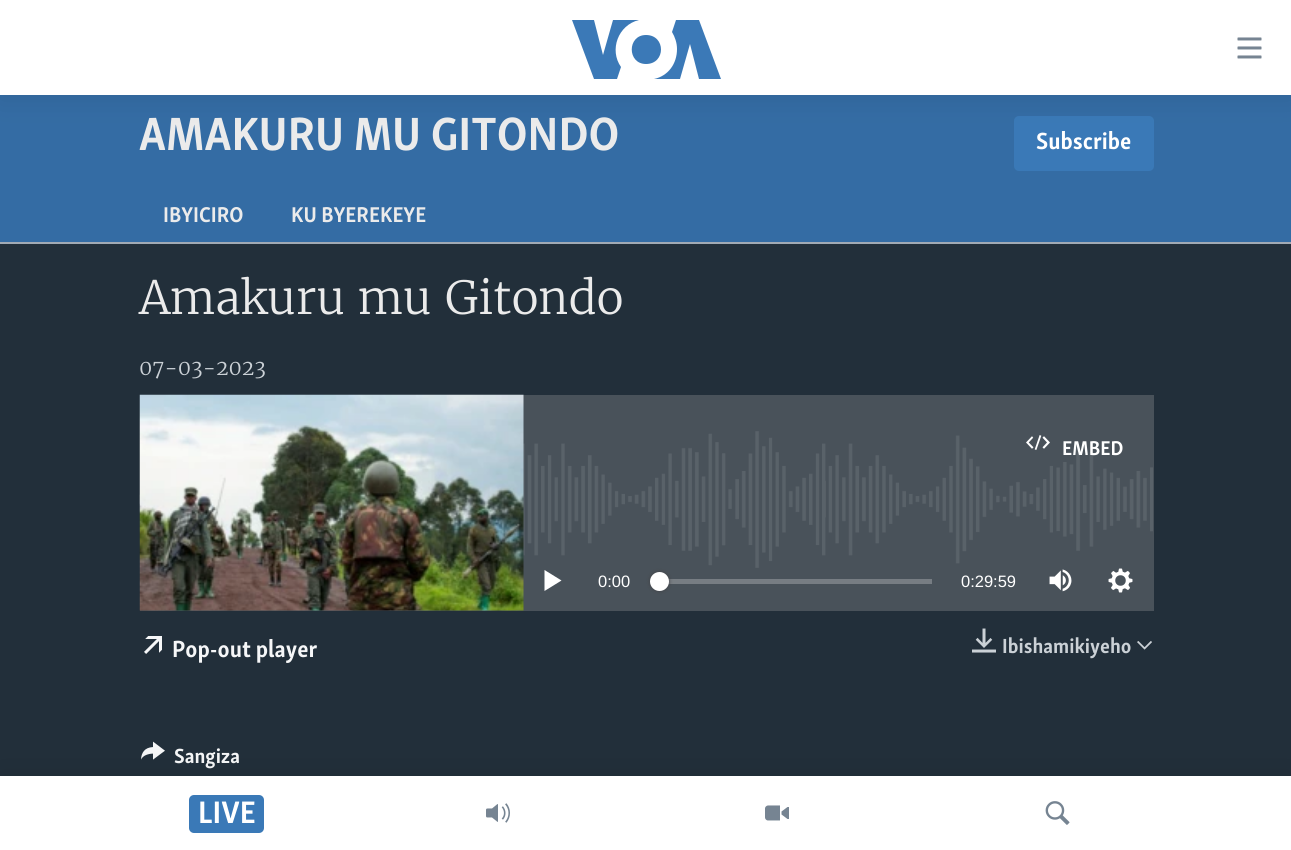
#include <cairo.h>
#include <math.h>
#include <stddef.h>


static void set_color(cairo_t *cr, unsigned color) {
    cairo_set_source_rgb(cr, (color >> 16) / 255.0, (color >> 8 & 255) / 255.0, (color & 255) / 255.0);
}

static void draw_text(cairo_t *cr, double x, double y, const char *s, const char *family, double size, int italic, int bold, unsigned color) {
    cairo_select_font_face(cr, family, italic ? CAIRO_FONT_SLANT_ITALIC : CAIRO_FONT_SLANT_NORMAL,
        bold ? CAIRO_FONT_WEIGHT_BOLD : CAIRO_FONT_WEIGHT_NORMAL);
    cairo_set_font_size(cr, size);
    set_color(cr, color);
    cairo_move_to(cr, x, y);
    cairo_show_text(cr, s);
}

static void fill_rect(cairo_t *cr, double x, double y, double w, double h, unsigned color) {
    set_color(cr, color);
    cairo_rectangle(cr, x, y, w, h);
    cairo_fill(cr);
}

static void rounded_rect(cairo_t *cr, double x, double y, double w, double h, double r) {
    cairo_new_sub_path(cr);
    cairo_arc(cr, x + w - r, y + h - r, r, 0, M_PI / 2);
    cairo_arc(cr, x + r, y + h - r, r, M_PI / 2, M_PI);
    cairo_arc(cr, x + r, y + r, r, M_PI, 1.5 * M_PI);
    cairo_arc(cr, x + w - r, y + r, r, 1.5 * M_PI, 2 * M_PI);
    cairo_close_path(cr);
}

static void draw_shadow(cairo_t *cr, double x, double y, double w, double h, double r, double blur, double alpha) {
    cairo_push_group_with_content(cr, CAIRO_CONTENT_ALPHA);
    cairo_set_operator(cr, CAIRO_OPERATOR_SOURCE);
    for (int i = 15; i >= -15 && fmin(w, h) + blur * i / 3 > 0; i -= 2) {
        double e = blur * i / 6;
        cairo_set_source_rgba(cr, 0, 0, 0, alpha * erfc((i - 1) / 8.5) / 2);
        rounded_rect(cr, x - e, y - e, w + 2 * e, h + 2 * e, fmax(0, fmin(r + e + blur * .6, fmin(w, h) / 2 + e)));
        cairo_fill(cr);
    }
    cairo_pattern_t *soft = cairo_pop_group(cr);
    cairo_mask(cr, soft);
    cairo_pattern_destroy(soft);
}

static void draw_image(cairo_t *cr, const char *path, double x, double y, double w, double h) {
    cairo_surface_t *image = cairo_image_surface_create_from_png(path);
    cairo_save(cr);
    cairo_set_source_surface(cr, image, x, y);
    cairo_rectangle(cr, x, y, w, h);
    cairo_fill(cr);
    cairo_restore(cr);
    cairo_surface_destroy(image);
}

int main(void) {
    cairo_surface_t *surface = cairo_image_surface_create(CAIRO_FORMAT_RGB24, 1291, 850);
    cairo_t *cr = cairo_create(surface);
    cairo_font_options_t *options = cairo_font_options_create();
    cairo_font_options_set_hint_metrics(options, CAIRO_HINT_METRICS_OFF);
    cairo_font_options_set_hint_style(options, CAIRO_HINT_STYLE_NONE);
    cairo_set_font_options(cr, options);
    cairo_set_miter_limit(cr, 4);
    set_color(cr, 0x346CA4);
    cairo_paint(cr);
    draw_text(cr, 139, 150, "AMAKURU MU GITONDO", "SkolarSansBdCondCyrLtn", 47.9, 0, 1, 0xEBEBEB);
    set_color(cr, 0x3A79B7);
    rounded_rect(cr, 1014, 116, 140, 55, 5);
    cairo_fill(cr);
    draw_text(cr, 1036, 149, "Subscribe", "SkolarSansBdCondCyrLtn", 24, 0, 1, 0xFFFFFF);
    draw_text(cr, 163, 222, "IBYICIRO", "SkolarSansBdCondCyrLtn", 22, 0, 1, 0xEBEBEB);
    draw_text(cr, 291, 222, "KU BYEREKEYE", "SkolarSansBdCondCyrLtn", 22, 0, 1, 0xEBEBEB);
    fill_rect(cr, 0, 244, 1291, 532, 0x222F3A);
    fill_rect(cr, 0, 242, 1291, 2, 0xA1AAB4);
    draw_text(cr, 139, 314, "Amakuru mu Gitondo", "Merriweather Light", 45.6, 0, 0, 0xEBEBEB);
    draw_text(cr, 139, 375, "07-03-2023", "Merriweather Light", 21, 0, 0, 0xCBD1D6);
    fill_rect(cr, 140, 395, 1014, 216, 0x49525A);
    draw_image(cr, "assets/img1.png", 139, 431, 1014, 137);
    draw_image(cr, "assets/img2.png", 139, 394, 385, 217);
    draw_image(cr, "assets/img3.png", 1026, 435, 24, 15);
    draw_text(cr, 1062, 455, "EMBED", "SkolarSansBdCondCyrLtn", 20.5, 0, 1, 0xFFFFFF);
    cairo_new_path(cr);
    cairo_move_to(cr, 544.5, 591);
    cairo_line_to(cr, 561.5, 580.5);
    cairo_line_to(cr, 544.5, 570);
    cairo_close_path(cr);
    cairo_fill(cr);
    draw_text(cr, 598, 587, "0:00", "Liberation Sans", 16.5, 0, 0, 0xFFFFFF);
    fill_rect(cr, 660, 579, 272, 5, 0x777D83);
    set_color(cr, 0x414144);
    draw_shadow(cr, 650, 572, 19, 19, 9.5, 2, 1);
    set_color(cr, 0xFFFFFF);
    cairo_arc(cr, 659.5, 581.5, 9.5, 0, 2 * M_PI);
    cairo_fill(cr);
    draw_text(cr, 961, 587, "0:29:59", "Liberation Sans", 16.5, 0, 0, 0xFFFFFF);
    draw_image(cr, "assets/img4.png", 1049, 569, 23, 23);
    draw_image(cr, "assets/img5.png", 1108, 568, 25, 25);
    draw_image(cr, "assets/img6.png", 144, 636, 18, 18);
    draw_text(cr, 172, 657, "Pop-out player", "SkolarSansBdCondCyrLtn", 24, 0, 1, 0xF6F7F8);
    draw_image(cr, "assets/img7.png", 972, 628, 24, 25);
    draw_text(cr, 1002, 653, "Ibishamikiyeho", "SkolarSansBdCondCyrLtn", 21, 0, 1, 0xCBD1D6);
    draw_image(cr, "assets/img8.png", 1137, 641, 15, 9);
    draw_image(cr, "assets/img9.png", 141, 741, 24, 19);
    draw_text(cr, 174, 763, "Sangiza", "SkolarSansBdCondCyrLtn", 21, 0, 1, 0xF6F7F8);
    set_color(cr, 0x000000);
    draw_shadow(cr, 0, 0, 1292, 95, 0, 15, 0.1);
    fill_rect(cr, 0, 0, 1291, 95, 0xFFFFFF);
    set_color(cr, 0x3B79B7);
    cairo_new_path(cr);
    cairo_move_to(cr, 621, 67);
    cairo_line_to(cr, 617, 79);
    cairo_line_to(cr, 594, 79);
    cairo_line_to(cr, 572, 20);
    cairo_line_to(cr, 594, 20);
    cairo_line_to(cr, 603, 55);
    cairo_line_to(cr, 613, 20);
    cairo_line_to(cr, 639, 20);
    cairo_curve_to(cr, 618, 25, 609, 50, 621, 67);
    cairo_close_path(cr);
    cairo_move_to(cr, 646, 35);
    cairo_curve_to(cr, 627, 35, 627, 64, 646, 64);
    cairo_curve_to(cr, 666, 64, 666, 35, 646, 35);
    cairo_close_path(cr);
    cairo_move_to(cr, 677, 49);
    cairo_curve_to(cr, 677, 64, 668, 76, 654, 79);
    cairo_line_to(cr, 680, 79);
    cairo_line_to(cr, 690, 44);
    cairo_line_to(cr, 699, 79);
    cairo_line_to(cr, 721, 79);
    cairo_line_to(cr, 699, 20);
    cairo_line_to(cr, 676, 20);
    cairo_line_to(cr, 672, 32);
    cairo_curve_to(cr, 675, 37, 677, 43, 677, 49);
    cairo_close_path(cr);
    cairo_fill(cr);
    draw_image(cr, "assets/img10.png", 1237, 37, 25, 22);
    set_color(cr, 0x000000);
    draw_shadow(cr, 0, 776, 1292, 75, 0, 15, 0.1);
    fill_rect(cr, 0, 776, 1291, 74, 0xFFFFFF);
    set_color(cr, 0x3A79B7);
    rounded_rect(cr, 189, 795, 75, 38, 5);
    cairo_fill(cr);
    draw_text(cr, 198, 823, "LIVE", "SkolarSansBdCondCyrLtn", 32, 0, 1, 0xFFFFFF);
    draw_image(cr, "assets/img11.png", 486, 803, 24, 20);
    draw_image(cr, "assets/img12.png", 765, 805, 24, 16);
    draw_image(cr, "assets/img13.png", 1045, 801, 25, 24);
    cairo_surface_write_to_png(surface, "output.png");
    cairo_font_options_destroy(options);
    cairo_destroy(cr);
    cairo_surface_destroy(surface);
    return 0;
}
